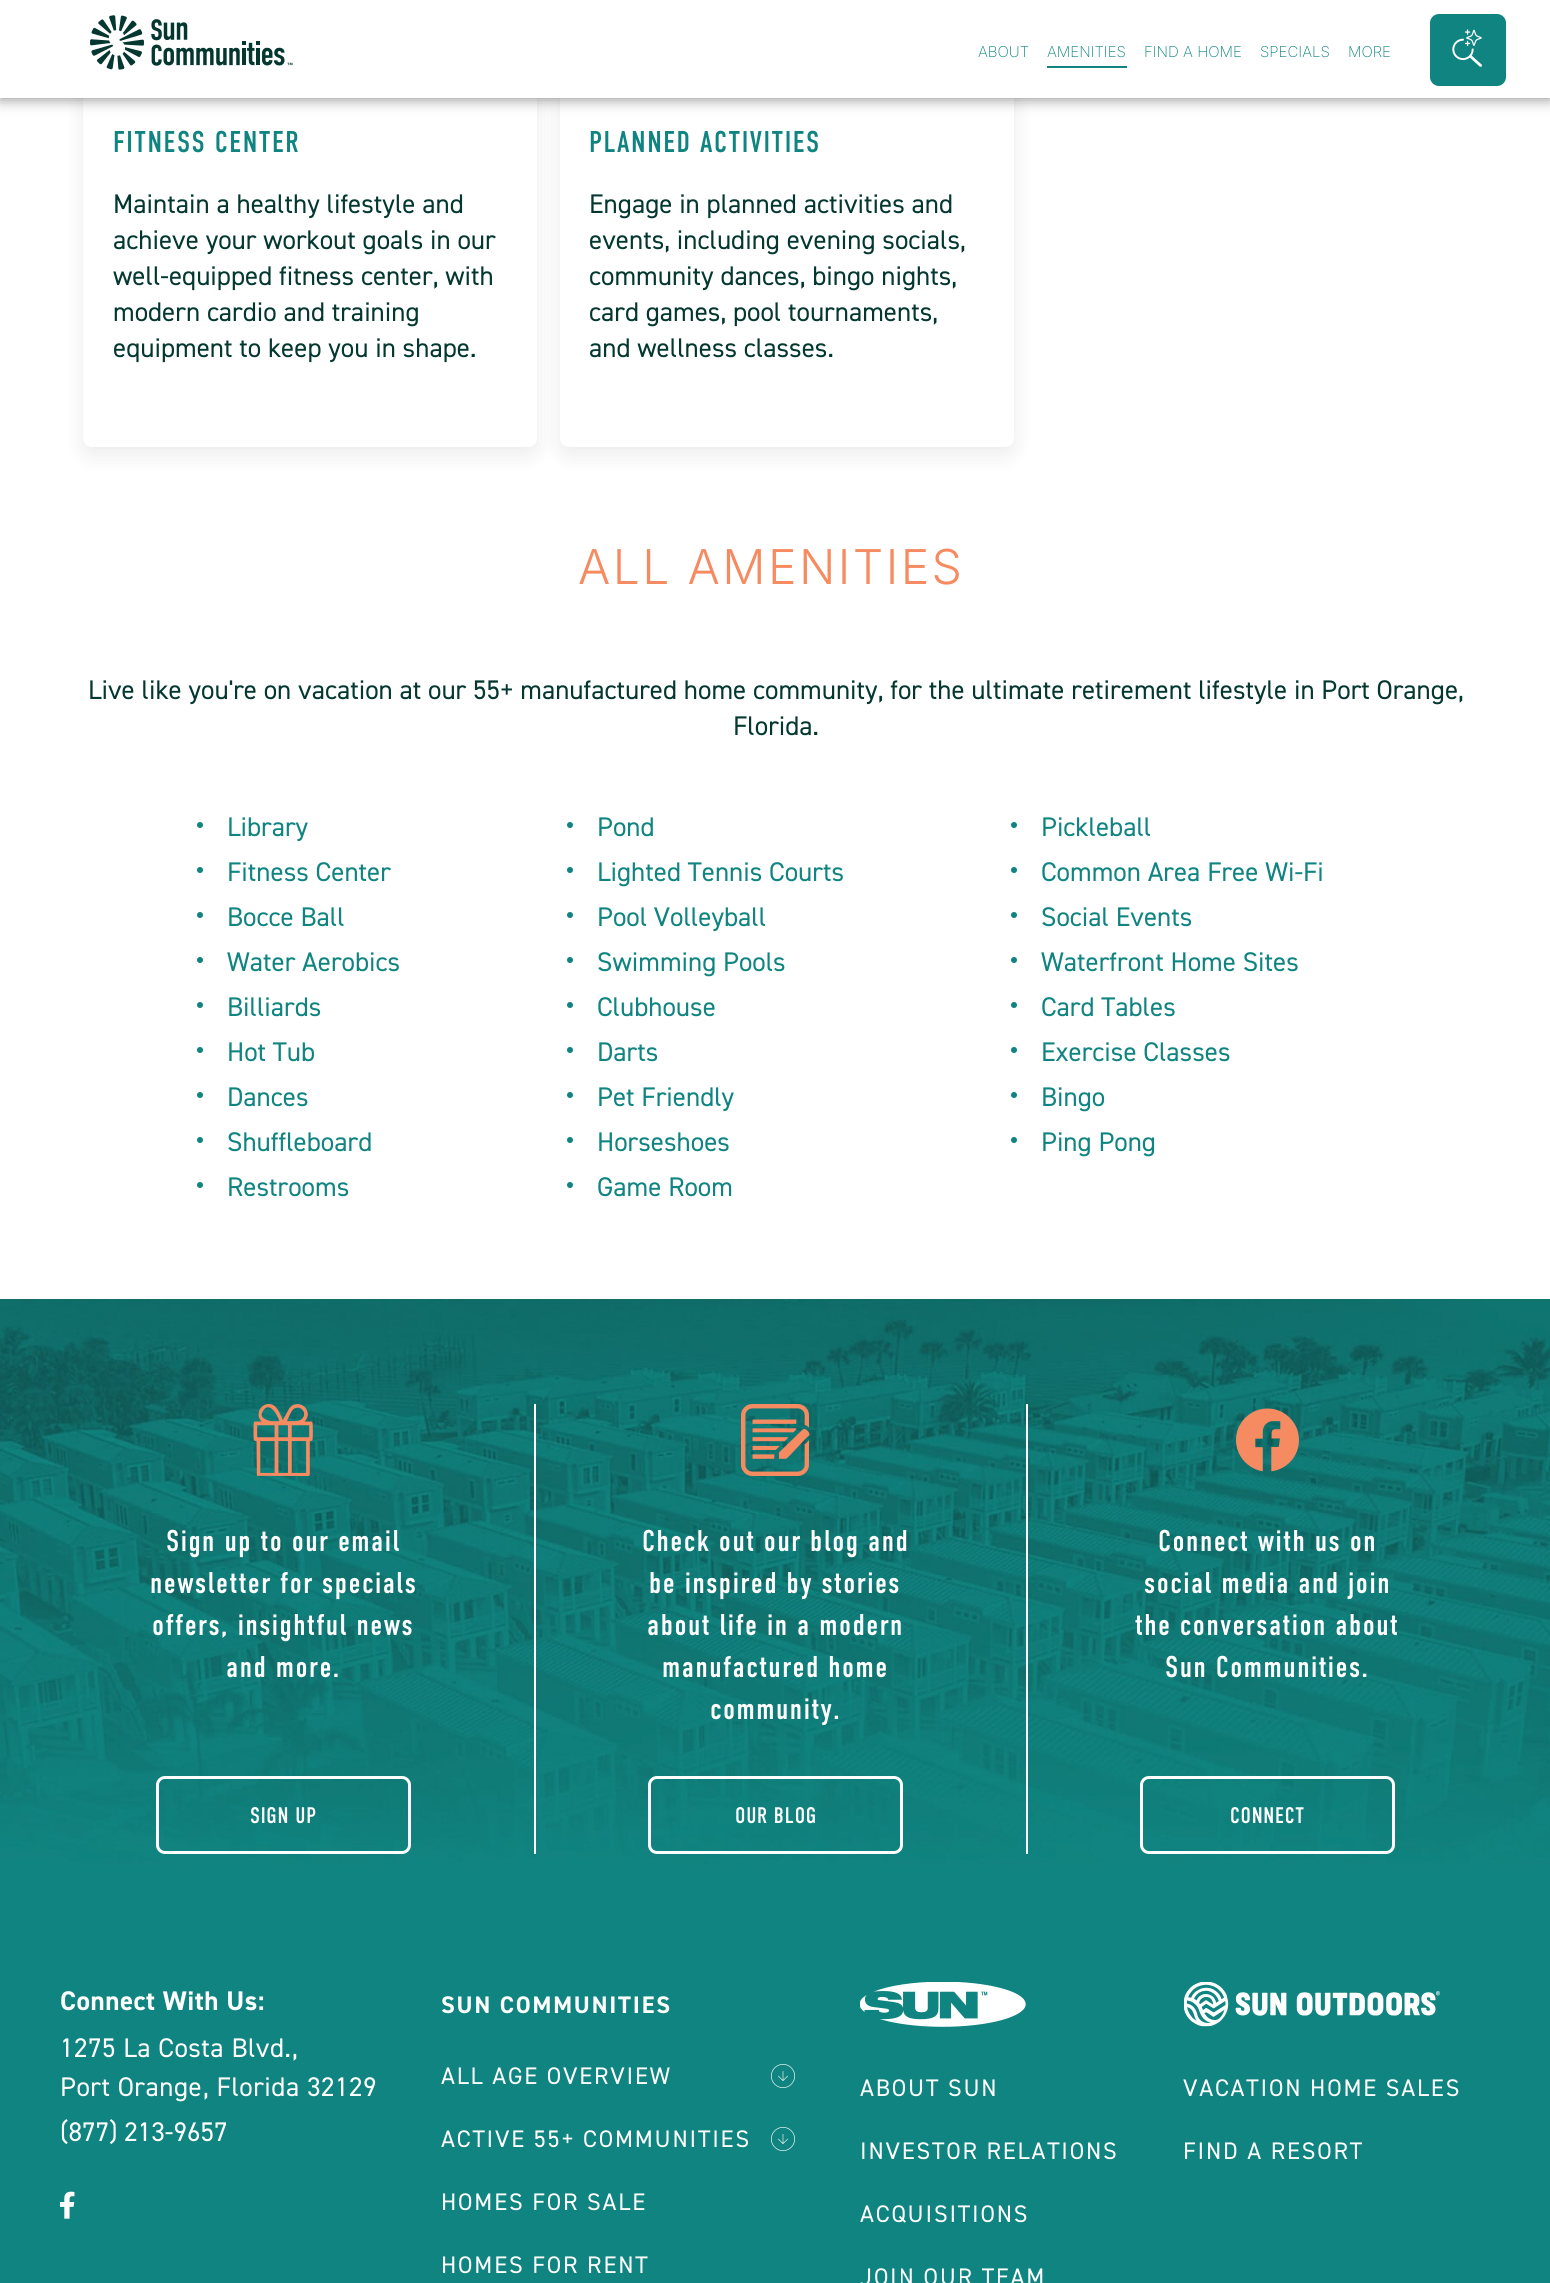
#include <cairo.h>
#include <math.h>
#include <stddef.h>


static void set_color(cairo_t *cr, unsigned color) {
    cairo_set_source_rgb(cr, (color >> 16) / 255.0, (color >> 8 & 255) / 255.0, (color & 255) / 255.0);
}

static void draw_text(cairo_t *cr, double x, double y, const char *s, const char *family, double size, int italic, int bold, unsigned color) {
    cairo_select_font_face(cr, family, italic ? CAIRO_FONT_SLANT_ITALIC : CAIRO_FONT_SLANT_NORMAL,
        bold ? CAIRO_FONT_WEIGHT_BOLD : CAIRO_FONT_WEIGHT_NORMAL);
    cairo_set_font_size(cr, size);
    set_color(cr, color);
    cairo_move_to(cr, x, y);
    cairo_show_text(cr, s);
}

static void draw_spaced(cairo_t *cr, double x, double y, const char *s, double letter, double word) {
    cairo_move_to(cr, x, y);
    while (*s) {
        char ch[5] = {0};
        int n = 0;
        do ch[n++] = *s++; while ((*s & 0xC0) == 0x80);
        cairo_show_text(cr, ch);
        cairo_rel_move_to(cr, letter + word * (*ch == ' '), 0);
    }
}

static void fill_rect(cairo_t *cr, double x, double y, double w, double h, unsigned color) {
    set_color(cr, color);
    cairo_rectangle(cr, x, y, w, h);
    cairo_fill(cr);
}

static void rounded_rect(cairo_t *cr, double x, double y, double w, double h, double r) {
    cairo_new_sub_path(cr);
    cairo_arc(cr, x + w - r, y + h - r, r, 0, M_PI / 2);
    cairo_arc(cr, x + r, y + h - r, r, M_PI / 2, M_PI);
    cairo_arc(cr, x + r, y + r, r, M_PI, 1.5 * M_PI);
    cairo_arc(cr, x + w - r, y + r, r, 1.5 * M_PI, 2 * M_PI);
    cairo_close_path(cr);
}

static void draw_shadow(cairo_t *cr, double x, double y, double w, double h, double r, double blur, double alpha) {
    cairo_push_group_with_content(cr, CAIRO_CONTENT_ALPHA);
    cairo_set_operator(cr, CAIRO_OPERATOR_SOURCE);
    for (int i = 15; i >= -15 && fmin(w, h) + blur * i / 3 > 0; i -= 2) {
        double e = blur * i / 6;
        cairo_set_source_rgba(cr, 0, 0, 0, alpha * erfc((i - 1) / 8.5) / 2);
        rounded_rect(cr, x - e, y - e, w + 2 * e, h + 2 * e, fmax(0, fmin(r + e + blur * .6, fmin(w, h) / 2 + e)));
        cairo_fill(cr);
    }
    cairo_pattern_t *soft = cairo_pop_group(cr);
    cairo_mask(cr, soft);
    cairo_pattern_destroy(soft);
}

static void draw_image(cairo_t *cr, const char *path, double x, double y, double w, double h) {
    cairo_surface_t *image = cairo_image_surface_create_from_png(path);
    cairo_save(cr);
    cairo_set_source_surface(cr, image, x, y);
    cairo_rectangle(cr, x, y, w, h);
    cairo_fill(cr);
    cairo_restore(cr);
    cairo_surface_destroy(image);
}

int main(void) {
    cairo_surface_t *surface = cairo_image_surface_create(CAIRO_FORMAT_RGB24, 1550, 2283);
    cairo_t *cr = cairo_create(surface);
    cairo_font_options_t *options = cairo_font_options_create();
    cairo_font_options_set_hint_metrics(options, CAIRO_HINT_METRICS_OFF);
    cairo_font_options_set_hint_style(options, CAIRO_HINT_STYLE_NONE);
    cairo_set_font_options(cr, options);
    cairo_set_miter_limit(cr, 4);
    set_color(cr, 0xFFFFFF);
    cairo_paint(cr);
    set_color(cr, 0x000000);
    draw_shadow(cr, 83, 84, 454, 371, 9, 11, 0.08);
    set_color(cr, 0xFFFFFF);
    rounded_rect(cr, 83, 77, 454, 370, 9);
    cairo_fill(cr);
    set_color(cr, 0x000000);
    draw_shadow(cr, 560, 84, 454, 371, 9, 11, 0.08);
    set_color(cr, 0xFFFFFF);
    rounded_rect(cr, 560, 77, 454, 370, 9);
    cairo_fill(cr);
    set_color(cr, 0x000000);
    draw_shadow(cr, 0, 0, 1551, 98, 0, 7.5, 0.5);
    fill_rect(cr, 0, 0, 1550, 98, 0xFFFFFF);
    draw_image(cr, "assets/img1.png", 90, 15, 203, 55);
    draw_text(cr, 978, 57, "ABOUT", "Inter ExtraLight", 15, 0, 0, 0x108480);
    draw_text(cr, 1047, 57, "AMENITIES", "Inter ExtraLight", 15, 0, 0, 0x108480);
    fill_rect(cr, 1047, 66, 80, 2, 0x108480);
    draw_text(cr, 1144, 57, "FIND A HOME", "Inter ExtraLight", 15, 0, 0, 0x108480);
    draw_text(cr, 1260, 57, "SPECIALS", "Inter ExtraLight", 15, 0, 0, 0x108480);
    draw_text(cr, 1348, 57, "MORE", "Inter ExtraLight", 15, 0, 0, 0x108480);
    rounded_rect(cr, 1430, 14, 76, 72, 9);
    cairo_fill(cr);
    draw_image(cr, "assets/img2.png", 1452, 29, 30, 38);
    cairo_select_font_face(cr, "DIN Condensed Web", CAIRO_FONT_SLANT_NORMAL, CAIRO_FONT_WEIGHT_NORMAL);
    cairo_set_font_size(cr, 30);
    draw_spaced(cr, 113, 152, "FITNESS CENTER", 1.5, 0);
    draw_text(cr, 113, 213, "Maintain a healthy lifestyle and", "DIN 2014", 27, 0, 0, 0x033730);
    draw_text(cr, 113, 249, "achieve your workout goals in our", "DIN 2014", 27, 0, 0, 0x033730);
    draw_text(cr, 113, 285, "well-equipped fitness center, with", "DIN 2014", 27, 0, 0, 0x033730);
    draw_text(cr, 113, 321, "modern cardio and training", "DIN 2014", 27, 0, 0, 0x033730);
    draw_text(cr, 113, 357, "equipment to keep you in shape.", "DIN 2014", 27, 0, 0, 0x033730);
    cairo_select_font_face(cr, "DIN Condensed Web", CAIRO_FONT_SLANT_NORMAL, CAIRO_FONT_WEIGHT_NORMAL);
    cairo_set_font_size(cr, 30);
    set_color(cr, 0x108480);
    draw_spaced(cr, 589, 152, "PLANNED ACTIVITIES", 1.5, 0);
    draw_text(cr, 589, 213, "Engage in planned activities and", "DIN 2014", 27, 0, 0, 0x033730);
    draw_text(cr, 589, 249, "events, including evening socials,", "DIN 2014", 27, 0, 0, 0x033730);
    draw_text(cr, 589, 285, "community dances, bingo nights,", "DIN 2014", 27, 0, 0, 0x033730);
    draw_text(cr, 589, 321, "card games, pool tournaments,", "DIN 2014", 27, 0, 0, 0x033730);
    draw_text(cr, 589, 357, "and wellness classes.", "DIN 2014", 27, 0, 0, 0x033730);
    cairo_select_font_face(cr, "Inter Light", CAIRO_FONT_SLANT_NORMAL, CAIRO_FONT_WEIGHT_NORMAL);
    cairo_set_font_size(cr, 48);
    set_color(cr, 0xF68B61);
    draw_spaced(cr, 578, 584, "ALL AMENITIES", 2.4, 0);
    draw_text(cr, 88, 699, "Live like you're on vacation at our 55+ manufactured home community, for the ultimate retirement lifestyle in Port Orange,", "DIN 2014", 27, 0, 0, 0x033730);
    draw_text(cr, 733, 735, "Florida.", "DIN 2014", 27, 0, 0, 0x033730);
    set_color(cr, 0x108480);
    cairo_new_path(cr);
    cairo_arc(cr, 200, 825, 3, 0, 2 * M_PI);
    cairo_fill(cr);
    draw_text(cr, 227, 836, "Library", "DIN 2014", 27, 0, 0, 0x108480);
    cairo_new_path(cr);
    cairo_arc(cr, 570, 825, 3, 0, 2 * M_PI);
    cairo_fill(cr);
    draw_text(cr, 597, 836, "Pond", "DIN 2014", 27, 0, 0, 0x108480);
    cairo_new_path(cr);
    cairo_arc(cr, 1014, 825, 3, 0, 2 * M_PI);
    cairo_fill(cr);
    draw_text(cr, 1041, 836, "Pickleball", "DIN 2014", 27, 0, 0, 0x108480);
    cairo_new_path(cr);
    cairo_arc(cr, 200, 870, 3, 0, 2 * M_PI);
    cairo_fill(cr);
    draw_text(cr, 227, 881, "Fitness Center", "DIN 2014", 27, 0, 0, 0x108480);
    cairo_new_path(cr);
    cairo_arc(cr, 570, 870, 3, 0, 2 * M_PI);
    cairo_fill(cr);
    draw_text(cr, 597, 881, "Lighted Tennis Courts", "DIN 2014", 27, 0, 0, 0x108480);
    cairo_new_path(cr);
    cairo_arc(cr, 1014, 870, 3, 0, 2 * M_PI);
    cairo_fill(cr);
    draw_text(cr, 1041, 881, "Common Area Free Wi-Fi", "DIN 2014", 27, 0, 0, 0x108480);
    cairo_new_path(cr);
    cairo_arc(cr, 200, 915, 3, 0, 2 * M_PI);
    cairo_fill(cr);
    draw_text(cr, 227, 926, "Bocce Ball", "DIN 2014", 27, 0, 0, 0x108480);
    cairo_new_path(cr);
    cairo_arc(cr, 570, 915, 3, 0, 2 * M_PI);
    cairo_fill(cr);
    draw_text(cr, 597, 926, "Pool Volleyball", "DIN 2014", 27, 0, 0, 0x108480);
    cairo_new_path(cr);
    cairo_arc(cr, 1014, 915, 3, 0, 2 * M_PI);
    cairo_fill(cr);
    draw_text(cr, 1041, 926, "Social Events", "DIN 2014", 27, 0, 0, 0x108480);
    cairo_new_path(cr);
    cairo_arc(cr, 200, 960, 3, 0, 2 * M_PI);
    cairo_fill(cr);
    draw_text(cr, 227, 971, "Water Aerobics", "DIN 2014", 27, 0, 0, 0x108480);
    cairo_new_path(cr);
    cairo_arc(cr, 570, 960, 3, 0, 2 * M_PI);
    cairo_fill(cr);
    draw_text(cr, 597, 971, "Swimming Pools", "DIN 2014", 27, 0, 0, 0x108480);
    cairo_new_path(cr);
    cairo_arc(cr, 1014, 960, 3, 0, 2 * M_PI);
    cairo_fill(cr);
    draw_text(cr, 1041, 971, "Waterfront Home Sites", "DIN 2014", 27, 0, 0, 0x108480);
    cairo_new_path(cr);
    cairo_arc(cr, 200, 1005, 3, 0, 2 * M_PI);
    cairo_fill(cr);
    draw_text(cr, 227, 1016, "Billiards", "DIN 2014", 27, 0, 0, 0x108480);
    cairo_new_path(cr);
    cairo_arc(cr, 570, 1005, 3, 0, 2 * M_PI);
    cairo_fill(cr);
    draw_text(cr, 597, 1016, "Clubhouse", "DIN 2014", 27, 0, 0, 0x108480);
    cairo_new_path(cr);
    cairo_arc(cr, 1014, 1005, 3, 0, 2 * M_PI);
    cairo_fill(cr);
    draw_text(cr, 1041, 1016, "Card Tables", "DIN 2014", 27, 0, 0, 0x108480);
    cairo_new_path(cr);
    cairo_arc(cr, 200, 1050, 3, 0, 2 * M_PI);
    cairo_fill(cr);
    draw_text(cr, 227, 1061, "Hot Tub", "DIN 2014", 27, 0, 0, 0x108480);
    cairo_new_path(cr);
    cairo_arc(cr, 570, 1050, 3, 0, 2 * M_PI);
    cairo_fill(cr);
    draw_text(cr, 597, 1061, "Darts", "DIN 2014", 27, 0, 0, 0x108480);
    cairo_new_path(cr);
    cairo_arc(cr, 1014, 1050, 3, 0, 2 * M_PI);
    cairo_fill(cr);
    draw_text(cr, 1041, 1061, "Exercise Classes", "DIN 2014", 27, 0, 0, 0x108480);
    cairo_new_path(cr);
    cairo_arc(cr, 200, 1095, 3, 0, 2 * M_PI);
    cairo_fill(cr);
    draw_text(cr, 227, 1106, "Dances", "DIN 2014", 27, 0, 0, 0x108480);
    cairo_new_path(cr);
    cairo_arc(cr, 570, 1095, 3, 0, 2 * M_PI);
    cairo_fill(cr);
    draw_text(cr, 597, 1106, "Pet Friendly", "DIN 2014", 27, 0, 0, 0x108480);
    cairo_new_path(cr);
    cairo_arc(cr, 1014, 1095, 3, 0, 2 * M_PI);
    cairo_fill(cr);
    draw_text(cr, 1041, 1106, "Bingo", "DIN 2014", 27, 0, 0, 0x108480);
    cairo_new_path(cr);
    cairo_arc(cr, 200, 1140, 3, 0, 2 * M_PI);
    cairo_fill(cr);
    draw_text(cr, 227, 1151, "Shuffleboard", "DIN 2014", 27, 0, 0, 0x108480);
    cairo_new_path(cr);
    cairo_arc(cr, 570, 1140, 3, 0, 2 * M_PI);
    cairo_fill(cr);
    draw_text(cr, 597, 1151, "Horseshoes", "DIN 2014", 27, 0, 0, 0x108480);
    cairo_new_path(cr);
    cairo_arc(cr, 1014, 1140, 3, 0, 2 * M_PI);
    cairo_fill(cr);
    draw_text(cr, 1041, 1151, "Ping Pong", "DIN 2014", 27, 0, 0, 0x108480);
    cairo_new_path(cr);
    cairo_arc(cr, 200, 1185, 3, 0, 2 * M_PI);
    cairo_fill(cr);
    draw_text(cr, 227, 1196, "Restrooms", "DIN 2014", 27, 0, 0, 0x108480);
    cairo_new_path(cr);
    cairo_arc(cr, 570, 1185, 3, 0, 2 * M_PI);
    cairo_fill(cr);
    draw_text(cr, 597, 1196, "Game Room", "DIN 2014", 27, 0, 0, 0x108480);
    draw_image(cr, "assets/img3.png", 0, 1299, 1550, 570);
    draw_image(cr, "assets/img4.png", 253, 1404, 60, 72);
    cairo_select_font_face(cr, "DIN Condensed Web", CAIRO_FONT_SLANT_NORMAL, CAIRO_FONT_WEIGHT_NORMAL);
    cairo_set_font_size(cr, 30);
    set_color(cr, 0xFFFFFF);
    draw_spaced(cr, 166, 1551, "Sign up to our email", 1.5, 0);
    draw_spaced(cr, 150, 1593, "newsletter for specials", 1.5, 0);
    draw_spaced(cr, 152, 1635, "offers, insightful news", 1.5, 0);
    draw_spaced(cr, 226, 1677, "and more.", 1.5, 0);
    rounded_rect(cr, 157.5, 1777.5, 252, 75, 7.5);
    cairo_set_line_width(cr, 3);
    cairo_stroke(cr);
    cairo_set_font_size(cr, 22.5);
    draw_spaced(cr, 250, 1823, "SIGN UP", 0.75, 0);
    fill_rect(cr, 534, 1404, 2, 450, 0xFFFFFF);
    draw_image(cr, "assets/img5.png", 741, 1404, 69, 72);
    cairo_set_font_size(cr, 30);
    draw_spaced(cr, 642, 1551, "Check out our blog and", 1.5, 0);
    draw_spaced(cr, 649, 1593, "be inspired by stories", 1.5, 0);
    draw_spaced(cr, 647, 1635, "about life in a modern", 1.5, 0);
    draw_spaced(cr, 662, 1677, "manufactured home", 1.5, 0);
    draw_spaced(cr, 710, 1719, "community.", 1.5, 0);
    rounded_rect(cr, 649.5, 1777.5, 252, 75, 7.5);
    cairo_stroke(cr);
    cairo_set_font_size(cr, 22.5);
    draw_spaced(cr, 735, 1823, "OUR BLOG", 0.75, 0);
    fill_rect(cr, 1026, 1404, 2, 450, 0xFFFFFF);
    draw_image(cr, "assets/img6.png", 1236, 1408, 63, 64);
    cairo_set_font_size(cr, 30);
    draw_spaced(cr, 1158, 1551, "Connect with us on", 1.5, 0);
    draw_spaced(cr, 1144, 1593, "social media and join", 1.5, 0);
    draw_spaced(cr, 1135, 1635, "the conversation about", 1.5, 0);
    draw_spaced(cr, 1165, 1677, "Sun Communities.", 1.5, 0);
    rounded_rect(cr, 1141.5, 1777.5, 252, 75, 7.5);
    cairo_stroke(cr);
    cairo_set_font_size(cr, 22.5);
    draw_spaced(cr, 1230, 1823, "CONNECT", 0.75, 0);
    fill_rect(cr, 0, 1869, 1550, 414, 0x108480);
    cairo_select_font_face(cr, "DIN 2014", CAIRO_FONT_SLANT_NORMAL, CAIRO_FONT_WEIGHT_BOLD);
    cairo_set_font_size(cr, 27);
    set_color(cr, 0xFFFFFF);
    draw_spaced(cr, 60, 2010, "Connect With Us:", 0.5, 0);
    cairo_select_font_face(cr, "DIN 2014", CAIRO_FONT_SLANT_NORMAL, CAIRO_FONT_WEIGHT_NORMAL);
    draw_spaced(cr, 60, 2057, "1275 La Costa Blvd.", 0.5, 0);
    draw_spaced(cr, 292, 2057, ",", 0.5, 0);
    draw_spaced(cr, 60, 2096, "Port Orange", 0.5, 0);
    draw_spaced(cr, 203, 2096, ", Florida 32129", 0.5, 0);
    draw_text(cr, 60, 2141, "(877) 213-9657", "DIN 2014", 27, 0, 0, 0xFFFFFF);
    draw_image(cr, "assets/img7.png", 60, 2191, 15, 28);
    cairo_select_font_face(cr, "DIN 2014", CAIRO_FONT_SLANT_NORMAL, CAIRO_FONT_WEIGHT_BOLD);
    cairo_set_font_size(cr, 24);
    draw_spaced(cr, 441, 2013, "SUN COMMUNITIES", 1.8, 0);
    cairo_select_font_face(cr, "DIN 2014", CAIRO_FONT_SLANT_NORMAL, CAIRO_FONT_WEIGHT_NORMAL);
    draw_spaced(cr, 441, 2084, "ALL AGE OVERVIEW", 1.8, 0);
    draw_image(cr, "assets/img8.png", 771, 2064, 24, 24);
    draw_spaced(cr, 441, 2147, "ACTIVE 55+ COMMUNITIES", 1.8, 0);
    draw_image(cr, "assets/img8.png", 771, 2127, 24, 24);
    draw_spaced(cr, 441, 2210, "HOMES FOR SALE", 1.8, 0);
    draw_spaced(cr, 441, 2273, "HOMES FOR RENT", 1.8, 0);
    draw_image(cr, "assets/img9.png", 860, 1982, 166, 45);
    draw_spaced(cr, 860, 2096, "ABOUT SUN", 1.8, 0);
    draw_spaced(cr, 860, 2159, "INVESTOR RELATIONS", 1.8, 0);
    draw_spaced(cr, 860, 2222, "ACQUISITIONS", 1.8, 0);
    draw_spaced(cr, 860, 2285, "JOIN OUR TEAM", 1.8, 0);
    draw_image(cr, "assets/img10.png", 1184, 1982, 256, 45);
    draw_spaced(cr, 1183, 2096, "VACATION HOME SALES", 1.8, 0);
    draw_spaced(cr, 1183, 2159, "FIND A RESORT", 1.8, 0);
    cairo_surface_write_to_png(surface, "output.png");
    cairo_font_options_destroy(options);
    cairo_destroy(cr);
    cairo_surface_destroy(surface);
    return 0;
}
